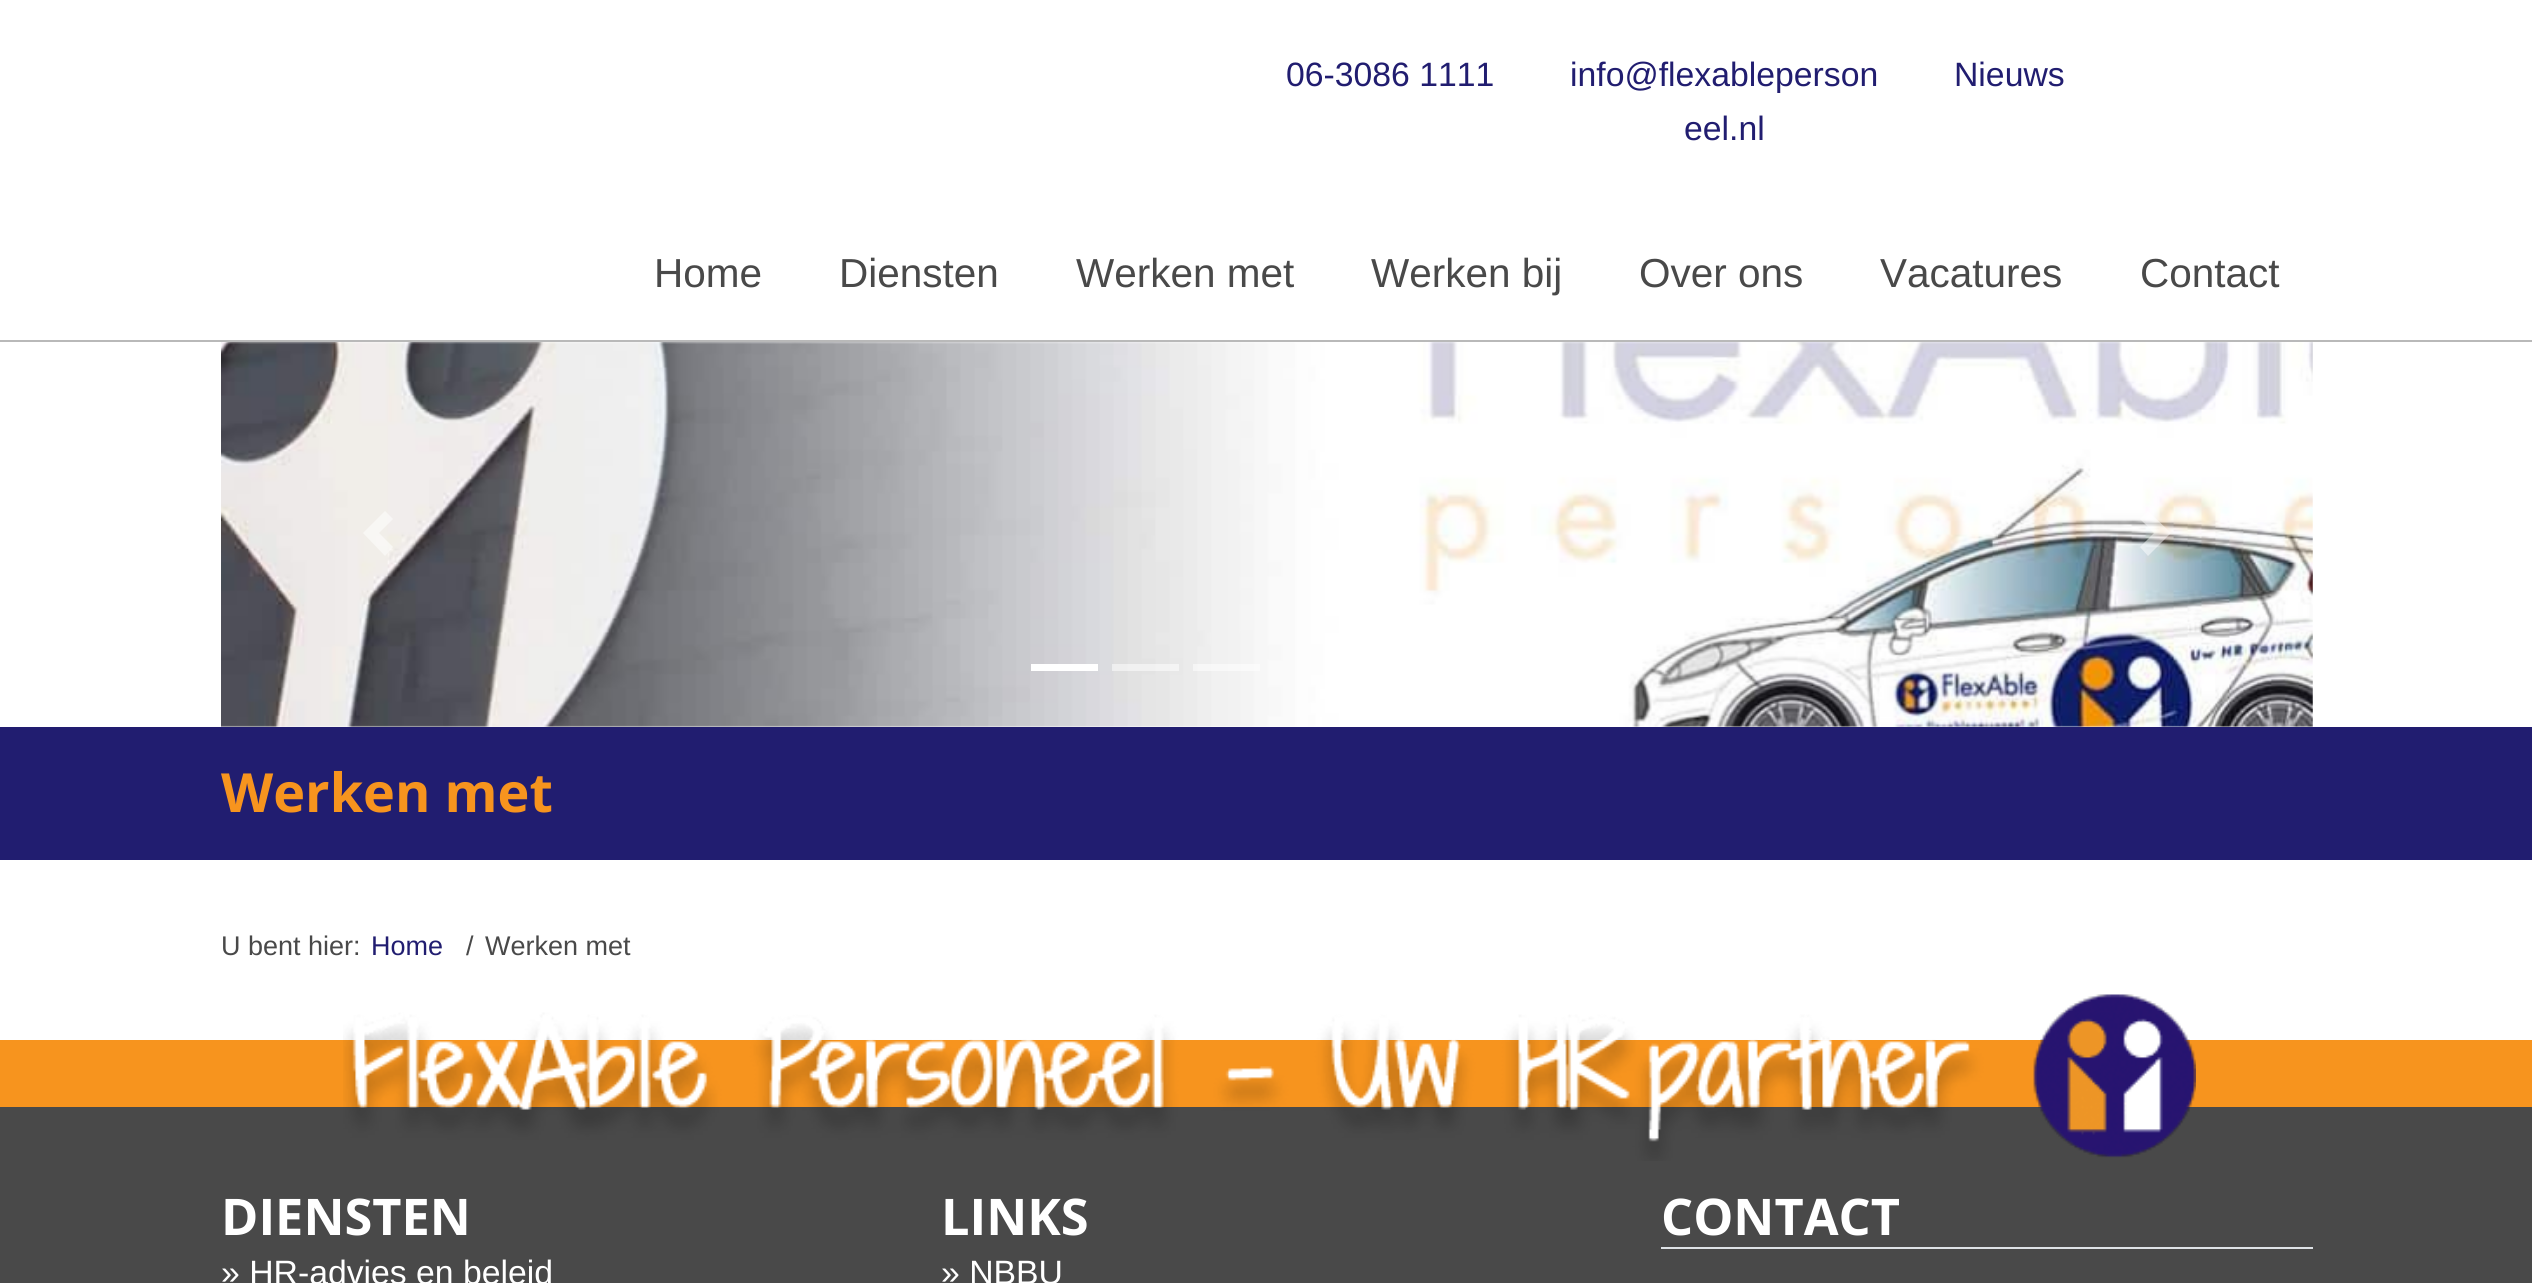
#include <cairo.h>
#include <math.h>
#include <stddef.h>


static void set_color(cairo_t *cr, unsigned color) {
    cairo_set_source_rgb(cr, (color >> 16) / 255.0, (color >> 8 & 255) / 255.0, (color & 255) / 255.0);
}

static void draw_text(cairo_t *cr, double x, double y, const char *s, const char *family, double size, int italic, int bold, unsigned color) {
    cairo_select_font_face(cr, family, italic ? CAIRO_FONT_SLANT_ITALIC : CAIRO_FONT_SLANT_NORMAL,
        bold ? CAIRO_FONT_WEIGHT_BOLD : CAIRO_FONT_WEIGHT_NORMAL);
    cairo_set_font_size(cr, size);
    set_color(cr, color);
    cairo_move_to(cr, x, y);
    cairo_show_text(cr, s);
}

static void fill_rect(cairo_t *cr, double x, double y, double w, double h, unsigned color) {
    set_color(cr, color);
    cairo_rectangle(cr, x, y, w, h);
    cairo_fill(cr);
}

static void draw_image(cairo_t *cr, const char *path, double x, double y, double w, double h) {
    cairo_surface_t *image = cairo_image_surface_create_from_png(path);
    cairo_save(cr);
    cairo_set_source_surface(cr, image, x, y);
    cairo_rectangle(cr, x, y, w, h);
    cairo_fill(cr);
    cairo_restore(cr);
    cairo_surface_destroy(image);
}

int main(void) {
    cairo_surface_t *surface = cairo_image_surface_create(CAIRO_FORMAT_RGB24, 2532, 1283);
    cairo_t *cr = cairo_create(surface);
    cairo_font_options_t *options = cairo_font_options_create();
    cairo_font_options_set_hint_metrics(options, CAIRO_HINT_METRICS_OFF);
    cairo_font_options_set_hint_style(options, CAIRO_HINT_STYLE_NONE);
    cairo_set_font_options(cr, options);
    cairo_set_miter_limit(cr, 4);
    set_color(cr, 0xFFFFFF);
    cairo_paint(cr);
    fill_rect(cr, 0, 340, 2532, 2, 0xB9B9B9);
    draw_text(cr, 1286, 86, "06-3086 1111", "Liberation Sans", 33.75, 0, 0, 0x211D70);
    draw_text(cr, 1570, 86, "info@flexableperson", "Liberation Sans", 33.75, 0, 0, 0x211D70);
    draw_text(cr, 1684, 140, "eel.nl", "Liberation Sans", 33.75, 0, 0, 0x211D70);
    draw_text(cr, 1954, 86, "Nieuws", "Liberation Sans", 33.75, 0, 0, 0x211D70);
    draw_text(cr, 654, 287, "Home", "Liberation Sans", 40.5, 0, 0, 0x494949);
    draw_text(cr, 839, 287, "Diensten", "Liberation Sans", 40.5, 0, 0, 0x494949);
    draw_text(cr, 1076, 287, "Werken met", "Liberation Sans", 40.5, 0, 0, 0x494949);
    draw_text(cr, 1371, 287, "Werken bij", "Liberation Sans", 40.5, 0, 0, 0x494949);
    draw_text(cr, 1639, 287, "Over ons", "Liberation Sans", 40.5, 0, 0, 0x494949);
    draw_text(cr, 1880, 287, "Vacatures", "Liberation Sans", 40.5, 0, 0, 0x494949);
    draw_text(cr, 2140, 287, "Contact", "Liberation Sans", 40.5, 0, 0, 0x494949);
    draw_image(cr, "assets/img1.png", 221, 342, 2092, 385);
    cairo_set_source_rgba(cr, 1, 1, 1, 0.5);
    cairo_new_path(cr);
    cairo_move_to(cr, 385, 511);
    cairo_line_to(cr, 363, 533);
    cairo_line_to(cr, 385, 556);
    cairo_line_to(cr, 393, 547);
    cairo_line_to(cr, 379, 533);
    cairo_line_to(cr, 393, 519);
    cairo_close_path(cr);
    cairo_fill(cr);
    cairo_new_path(cr);
    cairo_move_to(cr, 2148, 511);
    cairo_line_to(cr, 2140, 519);
    cairo_line_to(cr, 2154, 533);
    cairo_line_to(cr, 2140, 547);
    cairo_line_to(cr, 2148, 556);
    cairo_line_to(cr, 2171, 533);
    cairo_close_path(cr);
    cairo_fill(cr);
    fill_rect(cr, 1031, 664, 67, 7, 0xFFFFFF);
    cairo_set_source_rgba(cr, 1, 1, 1, 0.5);
    cairo_rectangle(cr, 1112, 664, 67, 7);
    cairo_fill(cr);
    cairo_rectangle(cr, 1193, 664, 67, 7);
    cairo_fill(cr);
    fill_rect(cr, 0, 727, 2532, 133, 0x211D70);
    draw_text(cr, 221, 812, "Werken met", "Open Sans", 54, 0, 1, 0xF7941E);
    draw_text(cr, 221, 955, "U bent hier:", "Liberation Sans", 27, 0, 0, 0x494949);
    draw_text(cr, 371, 955, "Home", "Liberation Sans", 27, 0, 0, 0x211D70);
    draw_text(cr, 466, 955, "/", "Liberation Sans", 27, 0, 0, 0x494949);
    draw_text(cr, 485, 955, "Werken met", "Liberation Sans", 27, 0, 0, 0x494949);
    fill_rect(cr, 0, 1107, 2532, 176, 0x494949);
    fill_rect(cr, 0, 1040, 2532, 67, 0xF7941E);
    draw_image(cr, "assets/img2.png", 343, 994, 1853, 167);
    draw_text(cr, 221, 1235, "DIENSTEN", "Open Sans", 50.5, 0, 1, 0xFFFFFF);
    draw_text(cr, 221, 1284, "» HR-advies en beleid", "Liberation Sans", 33.75, 0, 0, 0xFFFFFF);
    draw_text(cr, 941, 1235, "LINKS", "Open Sans", 50.5, 0, 1, 0xFFFFFF);
    draw_text(cr, 941, 1284, "» NBBU", "Liberation Sans", 33.75, 0, 0, 0xFFFFFF);
    draw_text(cr, 1661, 1235, "CONTACT", "Open Sans", 50.5, 0, 1, 0xFFFFFF);
    fill_rect(cr, 1661, 1247, 652, 2, 0xDEE2E6);
    cairo_surface_write_to_png(surface, "output.png");
    cairo_font_options_destroy(options);
    cairo_destroy(cr);
    cairo_surface_destroy(surface);
    return 0;
}
